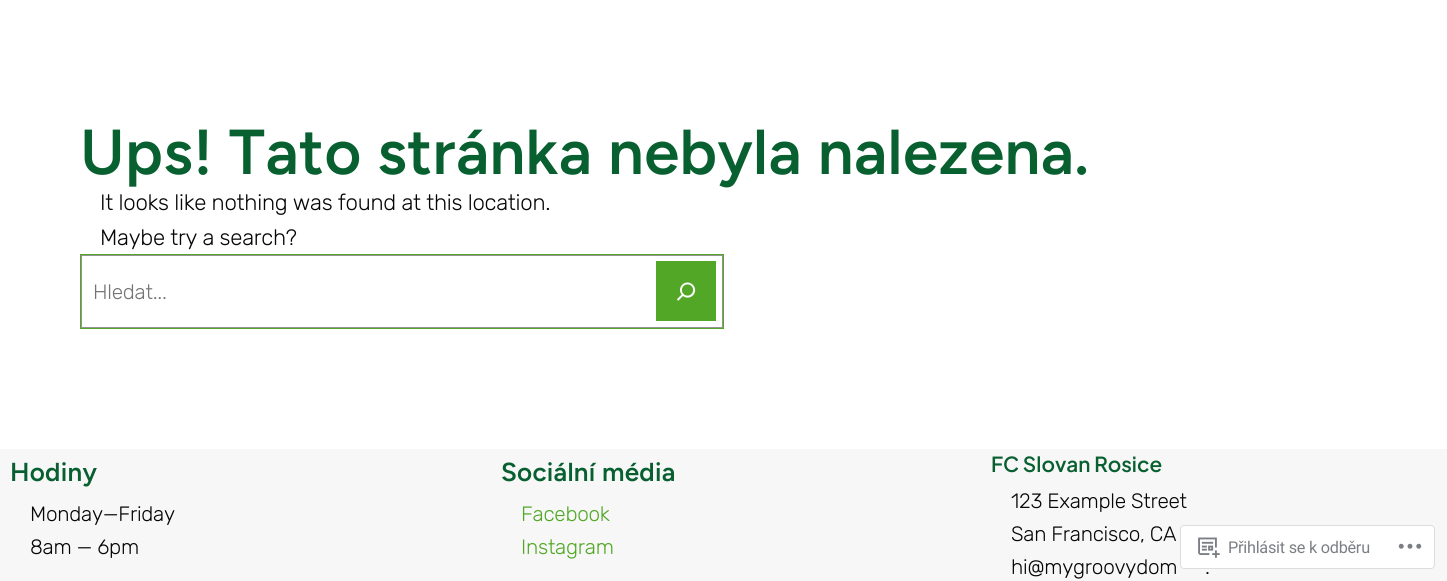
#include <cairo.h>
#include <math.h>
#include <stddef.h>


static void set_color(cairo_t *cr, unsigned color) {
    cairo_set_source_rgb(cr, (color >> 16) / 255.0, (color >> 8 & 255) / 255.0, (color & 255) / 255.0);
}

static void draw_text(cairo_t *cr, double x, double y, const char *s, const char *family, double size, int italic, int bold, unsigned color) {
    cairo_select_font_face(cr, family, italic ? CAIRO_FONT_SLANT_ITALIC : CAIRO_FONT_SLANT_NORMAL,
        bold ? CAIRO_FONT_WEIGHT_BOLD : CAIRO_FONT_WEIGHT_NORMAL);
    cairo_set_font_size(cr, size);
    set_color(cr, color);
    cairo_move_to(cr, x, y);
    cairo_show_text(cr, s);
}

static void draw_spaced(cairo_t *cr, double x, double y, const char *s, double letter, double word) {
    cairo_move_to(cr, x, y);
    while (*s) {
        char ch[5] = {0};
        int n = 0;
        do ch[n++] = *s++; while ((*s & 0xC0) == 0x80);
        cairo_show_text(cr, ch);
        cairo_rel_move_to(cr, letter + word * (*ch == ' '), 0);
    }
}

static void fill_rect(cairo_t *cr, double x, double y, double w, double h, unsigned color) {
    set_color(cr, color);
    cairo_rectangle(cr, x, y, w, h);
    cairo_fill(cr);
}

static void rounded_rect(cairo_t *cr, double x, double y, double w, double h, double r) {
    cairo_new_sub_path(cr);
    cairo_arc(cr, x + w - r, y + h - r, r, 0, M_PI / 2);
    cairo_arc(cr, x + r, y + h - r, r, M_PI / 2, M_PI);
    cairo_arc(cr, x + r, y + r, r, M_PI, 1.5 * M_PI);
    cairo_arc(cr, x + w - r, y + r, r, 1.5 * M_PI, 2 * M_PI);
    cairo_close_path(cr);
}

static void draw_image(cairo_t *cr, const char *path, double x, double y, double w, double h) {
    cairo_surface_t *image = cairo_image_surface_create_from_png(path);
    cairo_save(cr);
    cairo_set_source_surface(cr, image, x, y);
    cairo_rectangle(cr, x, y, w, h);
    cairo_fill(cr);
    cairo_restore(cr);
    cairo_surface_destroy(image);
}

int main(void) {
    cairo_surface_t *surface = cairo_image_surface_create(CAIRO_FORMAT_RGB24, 1447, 581);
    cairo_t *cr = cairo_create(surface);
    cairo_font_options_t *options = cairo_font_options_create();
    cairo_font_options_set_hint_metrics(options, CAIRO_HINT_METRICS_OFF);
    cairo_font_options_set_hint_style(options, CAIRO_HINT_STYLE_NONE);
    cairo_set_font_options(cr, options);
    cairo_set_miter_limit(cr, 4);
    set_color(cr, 0xFFFFFF);
    cairo_paint(cr);
    cairo_select_font_face(cr, "Figtree SemiBold", CAIRO_FONT_SLANT_NORMAL, CAIRO_FONT_WEIGHT_NORMAL);
    cairo_set_font_size(cr, 63.4);
    set_color(cr, 0x086030);
    draw_spaced(cr, 80, 174, "Ups! Tato stránka nebyla nalezena.", 0.4, 0);
    cairo_select_font_face(cr, "Rubik Light", CAIRO_FONT_SLANT_NORMAL, CAIRO_FONT_WEIGHT_NORMAL);
    cairo_set_font_size(cr, 22.2);
    set_color(cr, 0x070606);
    draw_spaced(cr, 100, 210, "It looks like nothing was found at this location.", -0.25, 0);
    draw_spaced(cr, 100, 245, "Maybe try a search?", -0.25, 0);
    cairo_rectangle(cr, 80.5, 254.5, 643, 74);
    set_color(cr, 0x52A826);
    cairo_set_line_width(cr, 1);
    cairo_stroke(cr);
    cairo_rectangle(cr, 81.5, 255.5, 641, 72);
    set_color(cr, 0x949494);
    cairo_stroke(cr);
    cairo_set_font_size(cr, 20.75);
    set_color(cr, 0x757575);
    draw_spaced(cr, 93, 299, "Hledat...", -0.25, 0);
    fill_rect(cr, 656, 261, 60, 60, 0x52A826);
    draw_image(cr, "assets/img1.png", 677, 282, 19, 19);
    fill_rect(cr, 0, 449, 1447, 132, 0xF7F7F7);
    cairo_select_font_face(cr, "Figtree SemiBold", CAIRO_FONT_SLANT_NORMAL, CAIRO_FONT_WEIGHT_NORMAL);
    cairo_set_font_size(cr, 26);
    set_color(cr, 0x086030);
    draw_spaced(cr, 10, 481, "Hodiny", 0.25, 0);
    cairo_select_font_face(cr, "Rubik Light", CAIRO_FONT_SLANT_NORMAL, CAIRO_FONT_WEIGHT_NORMAL);
    cairo_set_font_size(cr, 20.75);
    set_color(cr, 0x070606);
    draw_spaced(cr, 30, 521, "Monday—Friday", -0.25, 0);
    draw_spaced(cr, 30, 554, "8am — 6pm", -0.25, 0);
    cairo_select_font_face(cr, "Figtree SemiBold", CAIRO_FONT_SLANT_NORMAL, CAIRO_FONT_WEIGHT_NORMAL);
    cairo_set_font_size(cr, 26);
    set_color(cr, 0x086030);
    draw_spaced(cr, 501, 481, "Sociální média", 0.25, 0);
    cairo_select_font_face(cr, "Rubik Light", CAIRO_FONT_SLANT_NORMAL, CAIRO_FONT_WEIGHT_NORMAL);
    cairo_set_font_size(cr, 20.75);
    set_color(cr, 0x52A826);
    draw_spaced(cr, 521, 521, "Facebook", -0.25, 0);
    draw_spaced(cr, 521, 554, "Instagram", -0.25, 0);
    draw_text(cr, 991, 472, "FC Slovan Rosice", "Plus Jakarta Sans SemiBold", 20.75, 0, 0, 0x086030);
    cairo_select_font_face(cr, "Rubik Light", CAIRO_FONT_SLANT_NORMAL, CAIRO_FONT_WEIGHT_NORMAL);
    set_color(cr, 0x070606);
    draw_spaced(cr, 1011, 508, "123 Example Street", -0.25, 0);
    draw_spaced(cr, 1011, 541, "San Francisco, CA", -0.25, 0);
    draw_spaced(cr, 1011, 574, "hi@mygroovydom", -0.25, 0);
    draw_spaced(cr, 1205, 574, ".", -0.25, 0);
    cairo_set_source_rgba(cr, 1, 1, 1, 0.98);
    rounded_rect(cr, 1180, 525, 255, 44, 4);
    cairo_fill(cr);
    rounded_rect(cr, 1180.5, 525.5, 254, 43, 3.5);
    cairo_set_source_rgba(cr, 0.863, 0.863, 0.871, 0.98);
    cairo_stroke(cr);
    draw_image(cr, "assets/img2.png", 1198, 537, 22, 21);
    cairo_select_font_face(cr, "Roboto", CAIRO_FONT_SLANT_NORMAL, CAIRO_FONT_WEIGHT_NORMAL);
    cairo_set_font_size(cr, 16.25);
    set_color(cr, 0x7B7F84);
    draw_spaced(cr, 1228, 553, "Přihlásit se k odběru", -0.25, 0);
    draw_image(cr, "assets/img3.png", 1398, 543, 24, 6);
    cairo_surface_write_to_png(surface, "output.png");
    cairo_font_options_destroy(options);
    cairo_destroy(cr);
    cairo_surface_destroy(surface);
    return 0;
}
